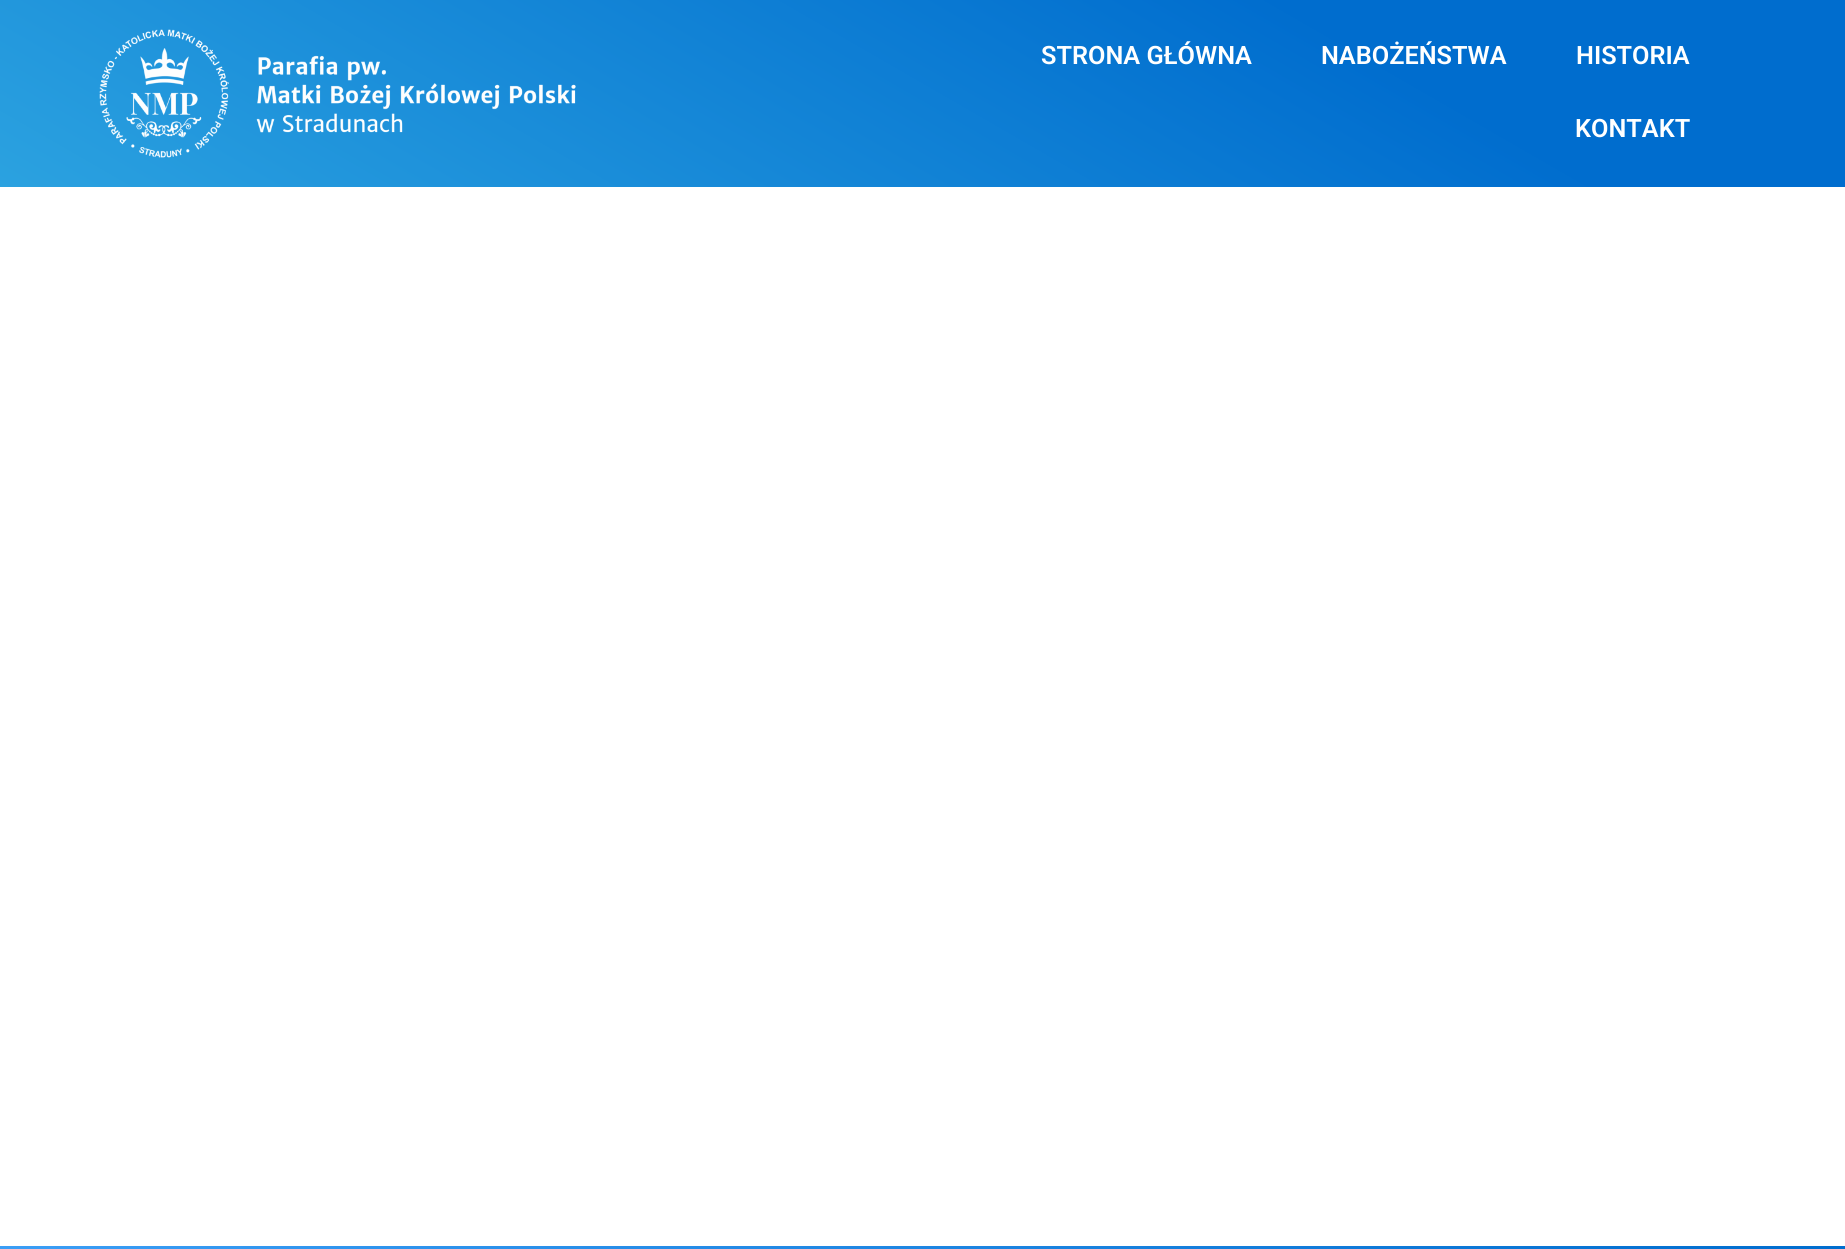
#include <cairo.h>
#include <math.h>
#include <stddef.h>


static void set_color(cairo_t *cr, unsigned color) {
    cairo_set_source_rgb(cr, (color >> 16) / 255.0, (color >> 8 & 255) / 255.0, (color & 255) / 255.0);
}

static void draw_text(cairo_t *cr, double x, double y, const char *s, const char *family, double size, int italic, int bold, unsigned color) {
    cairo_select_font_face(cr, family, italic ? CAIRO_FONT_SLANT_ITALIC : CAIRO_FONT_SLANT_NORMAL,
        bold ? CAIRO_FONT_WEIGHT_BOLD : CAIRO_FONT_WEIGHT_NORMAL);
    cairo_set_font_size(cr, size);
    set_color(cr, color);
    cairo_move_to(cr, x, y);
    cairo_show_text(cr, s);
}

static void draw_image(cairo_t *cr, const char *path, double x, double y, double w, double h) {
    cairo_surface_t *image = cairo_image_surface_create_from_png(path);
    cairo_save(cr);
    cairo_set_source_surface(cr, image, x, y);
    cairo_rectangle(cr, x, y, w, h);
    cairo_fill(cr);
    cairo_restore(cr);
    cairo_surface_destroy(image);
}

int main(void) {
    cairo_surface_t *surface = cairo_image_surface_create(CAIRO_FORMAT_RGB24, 1845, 1249);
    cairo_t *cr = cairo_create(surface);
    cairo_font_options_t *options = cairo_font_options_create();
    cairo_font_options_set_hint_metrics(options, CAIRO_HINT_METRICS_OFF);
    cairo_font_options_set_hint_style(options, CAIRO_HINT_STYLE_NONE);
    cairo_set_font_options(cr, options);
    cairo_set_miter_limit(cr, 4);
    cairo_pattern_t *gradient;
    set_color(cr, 0xFFFFFF);
    cairo_paint(cr);
    gradient = cairo_pattern_create_linear(652, 564, 1194, -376);
    cairo_pattern_add_color_stop_rgba(gradient, 0, 0.169, 0.635, 0.878, 1);
    cairo_pattern_add_color_stop_rgba(gradient, 0.74, 0, 0.427, 0.808, 1);
    cairo_set_source(cr, gradient);
    cairo_pattern_destroy(gradient);
    cairo_rectangle(cr, 0, 0, 1845, 187);
    cairo_fill(cr);
    draw_image(cr, "assets/img1.png", 99, 29, 477, 129);
    draw_text(cr, 1041, 64, "STRONA GŁÓWNA", "Roboto SemiBold", 25.25, 0, 0, 0xFFFFFF);
    draw_text(cr, 1321, 64, "NABOŻEŃSTWA", "Roboto SemiBold", 25.25, 0, 0, 0xFFFFFF);
    draw_text(cr, 1576, 64, "HISTORIA", "Roboto SemiBold", 25.25, 0, 0, 0xFFFFFF);
    draw_text(cr, 1575, 137, "KONTAKT", "Roboto SemiBold", 25.25, 0, 0, 0xFFFFFF);
    gradient = cairo_pattern_create_linear(175, 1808, 1672, 943);
    cairo_pattern_add_color_stop_rgba(gradient, 0, 0.251, 0.635, 0.976, 1);
    cairo_pattern_add_color_stop_rgba(gradient, 1, 0, 0.427, 0.808, 1);
    cairo_set_source(cr, gradient);
    cairo_pattern_destroy(gradient);
    cairo_rectangle(cr, 0, 1246, 1845, 3);
    cairo_fill(cr);
    cairo_surface_write_to_png(surface, "output.png");
    cairo_font_options_destroy(options);
    cairo_destroy(cr);
    cairo_surface_destroy(surface);
    return 0;
}
